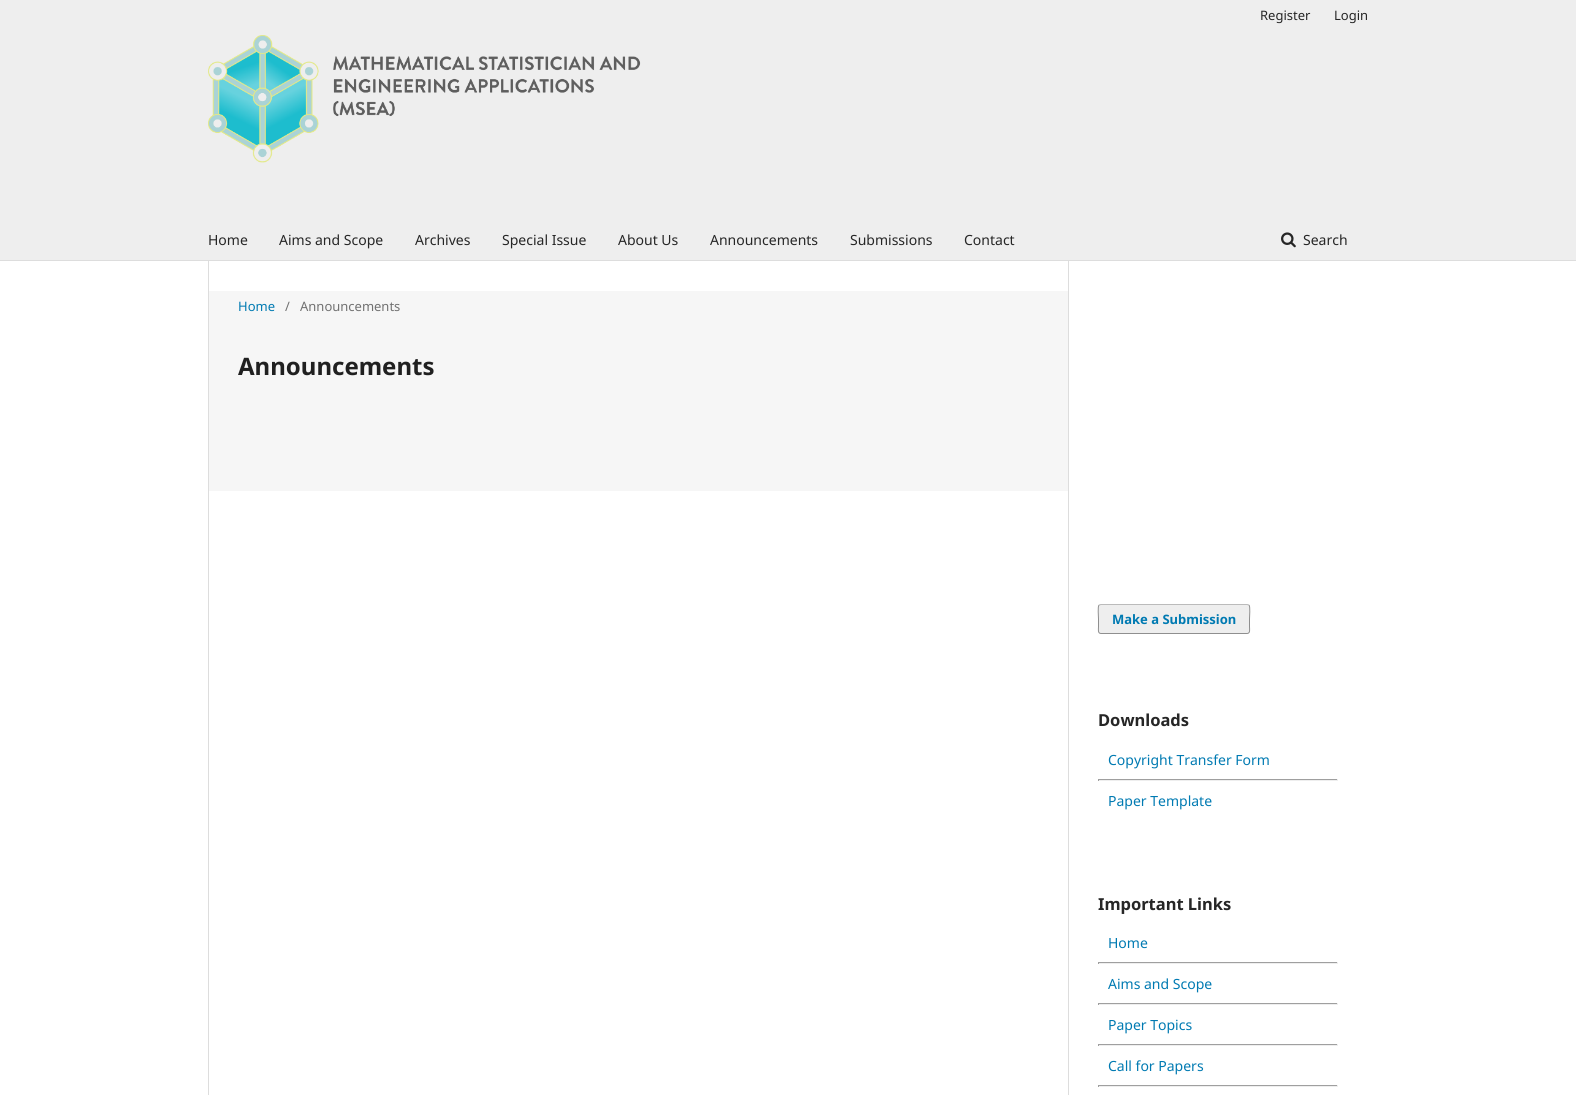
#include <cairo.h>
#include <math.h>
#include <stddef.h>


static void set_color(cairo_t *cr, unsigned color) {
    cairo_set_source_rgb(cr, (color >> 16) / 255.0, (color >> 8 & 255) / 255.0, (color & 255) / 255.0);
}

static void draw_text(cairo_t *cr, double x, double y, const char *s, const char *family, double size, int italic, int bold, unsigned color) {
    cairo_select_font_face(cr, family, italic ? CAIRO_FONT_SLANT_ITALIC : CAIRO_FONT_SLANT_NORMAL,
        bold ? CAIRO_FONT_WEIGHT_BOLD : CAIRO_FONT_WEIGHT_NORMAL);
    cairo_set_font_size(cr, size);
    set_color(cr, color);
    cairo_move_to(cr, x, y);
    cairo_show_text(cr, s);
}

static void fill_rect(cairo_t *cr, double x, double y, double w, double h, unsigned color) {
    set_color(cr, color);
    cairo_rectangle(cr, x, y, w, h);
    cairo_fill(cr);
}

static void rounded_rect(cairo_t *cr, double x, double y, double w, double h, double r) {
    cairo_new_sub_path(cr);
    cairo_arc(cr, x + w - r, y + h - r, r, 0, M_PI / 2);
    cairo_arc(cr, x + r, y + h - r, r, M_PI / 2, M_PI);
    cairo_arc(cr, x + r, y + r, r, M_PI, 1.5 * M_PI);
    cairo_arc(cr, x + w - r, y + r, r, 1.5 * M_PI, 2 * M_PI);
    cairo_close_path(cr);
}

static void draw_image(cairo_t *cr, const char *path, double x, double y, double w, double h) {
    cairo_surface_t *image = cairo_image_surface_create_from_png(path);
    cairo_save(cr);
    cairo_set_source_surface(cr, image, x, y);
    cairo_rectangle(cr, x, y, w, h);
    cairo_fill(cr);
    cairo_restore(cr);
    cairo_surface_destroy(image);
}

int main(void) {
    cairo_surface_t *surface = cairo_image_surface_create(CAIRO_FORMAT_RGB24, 1576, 1095);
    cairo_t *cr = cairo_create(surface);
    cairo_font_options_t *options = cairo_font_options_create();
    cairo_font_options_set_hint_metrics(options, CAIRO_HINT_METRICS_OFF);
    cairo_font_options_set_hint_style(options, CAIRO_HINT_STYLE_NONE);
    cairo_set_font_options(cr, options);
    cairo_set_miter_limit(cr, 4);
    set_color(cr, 0xFFFFFF);
    cairo_paint(cr);
    fill_rect(cr, 0, 0, 1576, 260, 0xEEEEEE);
    fill_rect(cr, 0, 260, 1576, 1, 0xDDDDDD);
    draw_text(cr, 1260, 20, "Register", "Noto Sans", 13, 0, 0, 0x262626);
    draw_text(cr, 1334, 20, "Login", "Noto Sans", 13, 0, 0, 0x262626);
    draw_text(cr, 208, 245, "Home", "Noto Sans", 14, 0, 0, 0x262626);
    draw_text(cr, 279, 245, "Aims and Scope", "Noto Sans", 14, 0, 0, 0x262626);
    draw_text(cr, 415, 245, "Archives", "Noto Sans", 14, 0, 0, 0x262626);
    draw_text(cr, 502, 245, "Special Issue", "Noto Sans", 14, 0, 0, 0x262626);
    draw_text(cr, 618, 245, "About Us", "Noto Sans", 14, 0, 0, 0x262626);
    draw_text(cr, 710, 245, "Announcements", "Noto Sans", 14, 0, 0, 0x262626);
    draw_text(cr, 850, 245, "Submissions", "Noto Sans", 14, 0, 0, 0x262626);
    draw_text(cr, 964, 245, "Contact", "Noto Sans", 14, 0, 0, 0x262626);
    draw_image(cr, "assets/img1.png", 1281, 232, 15, 16);
    draw_text(cr, 1303, 245, "Search", "Noto Sans", 14, 0, 0, 0x262626);
    draw_image(cr, "assets/img2.png", 208, 35, 433, 128);
    fill_rect(cr, 209, 291, 859, 200, 0xF6F6F6);
    fill_rect(cr, 208, 261, 1, 834, 0xDDDDDD);
    draw_text(cr, 238, 311, "Home", "Noto Sans", 13, 0, 0, 0x007AB2);
    draw_text(cr, 285, 311, "/", "Noto Sans", 13, 0, 0, 0x717171);
    draw_text(cr, 300, 311, "Announcements", "Noto Sans", 13, 0, 0, 0x717171);
    draw_text(cr, 238, 375, "Announcements", "Noto Sans", 24, 0, 1, 0x202020);
    fill_rect(cr, 1068, 261, 1, 834, 0xDDDDDD);
    set_color(cr, 0xEEEEEE);
    rounded_rect(cr, 1098, 604, 152, 30, 3);
    cairo_fill(cr);
    cairo_new_path(cr);
    cairo_move_to(cr, 1099, 605);
    cairo_line_to(cr, 1101, 604.5);
    cairo_line_to(cr, 1247, 604.5);
    cairo_line_to(cr, 1249, 605);
    set_color(cr, 0xBBBBBB);
    cairo_set_line_width(cr, 1);
    cairo_stroke(cr);
    cairo_new_path(cr);
    cairo_move_to(cr, 1249, 605);
    cairo_curve_to(cr, 1250.5, 607, 1249.5, 616.5, 1249.5, 619);
    cairo_line_to(cr, 1249.5, 627);
    cairo_curve_to(cr, 1249.5, 629, 1250.5, 633.5, 1247, 633.5);
    cairo_line_to(cr, 1101, 633.5);
    cairo_curve_to(cr, 1097.5, 633.5, 1098.5, 629, 1098.5, 627);
    cairo_line_to(cr, 1098.5, 619);
    cairo_curve_to(cr, 1098.5, 616.5, 1097.5, 607, 1099, 605);
    cairo_set_source_rgba(cr, 0, 0, 0, 0.4);
    cairo_stroke(cr);
    draw_text(cr, 1112, 624, "Make a Submission", "Noto Sans", 13, 0, 1, 0x007AB2);
    draw_text(cr, 1098, 726, "Downloads", "Noto Sans", 16.5, 0, 1, 0x262626);
    draw_text(cr, 1108, 765, "Copyright Transfer Form", "Noto Sans", 14, 0, 0, 0x007AB2);
    fill_rect(cr, 1098, 779, 240, 1, 0x9F9F9F);
    fill_rect(cr, 1337, 779, 1, 2, 0xEEEEEE);
    fill_rect(cr, 1098, 780, 240, 1, 0xEEEEEE);
    fill_rect(cr, 1098, 779, 1, 2, 0x9F9F9F);
    draw_text(cr, 1108, 806, "Paper Template", "Noto Sans", 14, 0, 0, 0x007AB2);
    draw_text(cr, 1098, 910, "Important Links", "Noto Sans", 16.5, 0, 1, 0x262626);
    draw_text(cr, 1108, 948, "Home", "Noto Sans", 14, 0, 0, 0x007AB2);
    fill_rect(cr, 1098, 962, 240, 1, 0x9F9F9F);
    fill_rect(cr, 1337, 962, 1, 2, 0xEEEEEE);
    fill_rect(cr, 1098, 963, 240, 1, 0xEEEEEE);
    fill_rect(cr, 1098, 962, 1, 2, 0x9F9F9F);
    draw_text(cr, 1108, 989, "Aims and Scope", "Noto Sans", 14, 0, 0, 0x007AB2);
    fill_rect(cr, 1098, 1003, 240, 1, 0x9F9F9F);
    fill_rect(cr, 1337, 1003, 1, 2, 0xEEEEEE);
    fill_rect(cr, 1098, 1004, 240, 1, 0xEEEEEE);
    fill_rect(cr, 1098, 1003, 1, 2, 0x9F9F9F);
    draw_text(cr, 1108, 1030, "Paper Topics", "Noto Sans", 14, 0, 0, 0x007AB2);
    fill_rect(cr, 1098, 1044, 240, 1, 0x9F9F9F);
    fill_rect(cr, 1337, 1044, 1, 2, 0xEEEEEE);
    fill_rect(cr, 1098, 1045, 240, 1, 0xEEEEEE);
    fill_rect(cr, 1098, 1044, 1, 2, 0x9F9F9F);
    draw_text(cr, 1108, 1071, "Call for Papers", "Noto Sans", 14, 0, 0, 0x007AB2);
    fill_rect(cr, 1098, 1085, 240, 1, 0x9F9F9F);
    fill_rect(cr, 1337, 1085, 1, 2, 0xEEEEEE);
    fill_rect(cr, 1098, 1086, 240, 1, 0xEEEEEE);
    fill_rect(cr, 1098, 1085, 1, 2, 0x9F9F9F);
    cairo_surface_write_to_png(surface, "output.png");
    cairo_font_options_destroy(options);
    cairo_destroy(cr);
    cairo_surface_destroy(surface);
    return 0;
}
